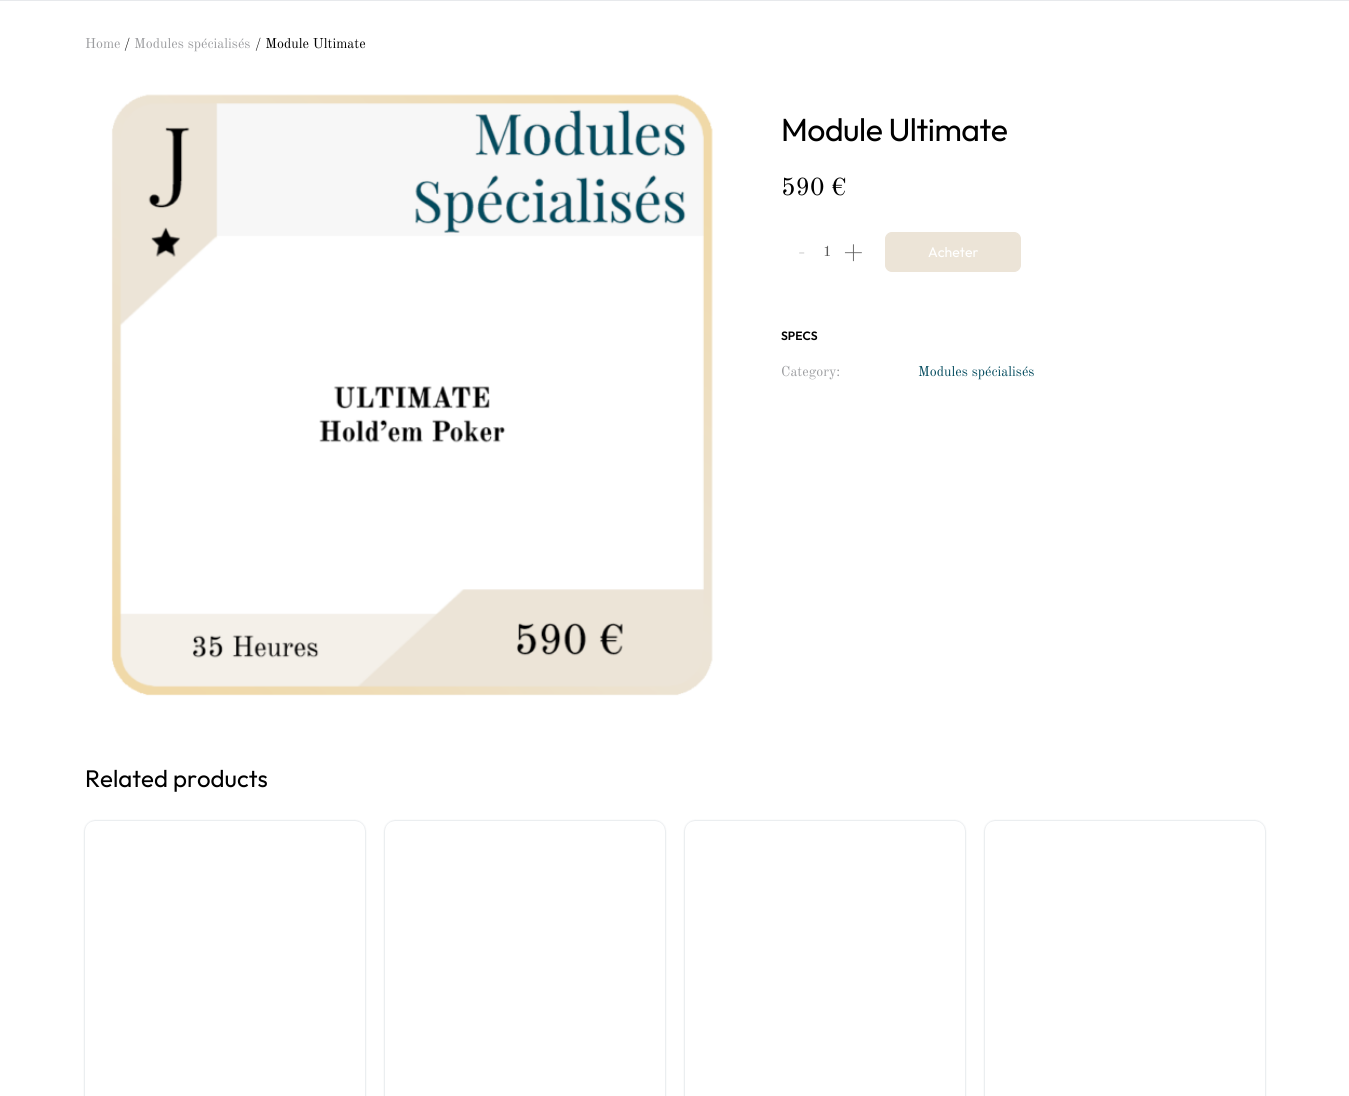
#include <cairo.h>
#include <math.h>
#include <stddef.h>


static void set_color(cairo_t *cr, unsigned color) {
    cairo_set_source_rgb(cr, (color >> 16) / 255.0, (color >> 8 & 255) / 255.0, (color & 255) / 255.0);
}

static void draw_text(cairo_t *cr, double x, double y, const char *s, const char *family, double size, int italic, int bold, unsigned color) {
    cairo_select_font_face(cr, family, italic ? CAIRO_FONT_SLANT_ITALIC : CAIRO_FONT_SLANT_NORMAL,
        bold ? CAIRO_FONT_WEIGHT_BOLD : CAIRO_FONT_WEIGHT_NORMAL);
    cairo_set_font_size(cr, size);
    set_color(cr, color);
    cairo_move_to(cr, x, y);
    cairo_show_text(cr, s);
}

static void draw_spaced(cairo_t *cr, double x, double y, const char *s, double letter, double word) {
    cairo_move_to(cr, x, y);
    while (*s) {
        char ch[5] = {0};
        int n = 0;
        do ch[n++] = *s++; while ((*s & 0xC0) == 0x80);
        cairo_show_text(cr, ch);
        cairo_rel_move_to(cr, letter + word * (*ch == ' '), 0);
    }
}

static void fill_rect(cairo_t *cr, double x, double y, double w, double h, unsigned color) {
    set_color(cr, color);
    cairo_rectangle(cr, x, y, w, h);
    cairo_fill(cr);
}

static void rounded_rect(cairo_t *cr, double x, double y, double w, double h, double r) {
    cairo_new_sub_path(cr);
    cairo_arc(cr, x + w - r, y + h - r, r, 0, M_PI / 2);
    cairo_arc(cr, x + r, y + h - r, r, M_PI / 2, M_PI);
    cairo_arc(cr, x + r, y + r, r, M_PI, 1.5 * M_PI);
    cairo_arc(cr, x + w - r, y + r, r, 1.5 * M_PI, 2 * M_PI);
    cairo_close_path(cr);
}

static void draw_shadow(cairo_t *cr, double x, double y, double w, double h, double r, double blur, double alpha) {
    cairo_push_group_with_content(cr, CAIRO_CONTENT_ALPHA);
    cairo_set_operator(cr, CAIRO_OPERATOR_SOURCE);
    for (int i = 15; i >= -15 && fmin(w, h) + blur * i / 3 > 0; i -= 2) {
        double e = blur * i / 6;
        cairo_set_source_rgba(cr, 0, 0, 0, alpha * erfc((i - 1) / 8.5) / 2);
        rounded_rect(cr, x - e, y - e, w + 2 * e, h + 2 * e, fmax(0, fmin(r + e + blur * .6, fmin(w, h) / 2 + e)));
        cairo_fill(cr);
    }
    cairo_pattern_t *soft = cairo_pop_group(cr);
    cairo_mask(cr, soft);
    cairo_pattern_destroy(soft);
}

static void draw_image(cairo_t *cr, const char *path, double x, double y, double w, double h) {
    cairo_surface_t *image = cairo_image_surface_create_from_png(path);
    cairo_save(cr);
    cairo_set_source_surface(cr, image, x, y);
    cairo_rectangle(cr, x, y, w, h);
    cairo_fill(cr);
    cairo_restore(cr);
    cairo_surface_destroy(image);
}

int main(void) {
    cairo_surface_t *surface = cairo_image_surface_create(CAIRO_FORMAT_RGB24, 1349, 1096);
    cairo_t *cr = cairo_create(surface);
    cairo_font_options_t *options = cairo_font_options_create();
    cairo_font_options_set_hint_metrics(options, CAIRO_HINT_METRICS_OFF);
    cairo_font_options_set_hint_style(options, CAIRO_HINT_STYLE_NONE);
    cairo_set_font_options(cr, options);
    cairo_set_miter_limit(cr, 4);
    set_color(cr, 0xFFFFFF);
    cairo_paint(cr);
    fill_rect(cr, 0, 0, 1349, 1, 0xE7E9EC);
    draw_text(cr, 85, 48, "Home", "Old Standard TT", 14, 0, 0, 0x9B9C9F);
    draw_text(cr, 124, 48, "/", "Old Standard TT", 14, 0, 0, 0x000000);
    draw_text(cr, 134, 48, "Modules spécialisés", "Old Standard TT", 14, 0, 0, 0x9B9C9F);
    draw_text(cr, 255, 48, "/ Module Ultimate", "Old Standard TT", 14, 0, 0, 0x000000);
    draw_image(cr, "assets/img1.png", 111, 94, 602, 602);
    cairo_select_font_face(cr, "Outfit", CAIRO_FONT_SLANT_NORMAL, CAIRO_FONT_WEIGHT_NORMAL);
    cairo_set_font_size(cr, 32);
    draw_spaced(cr, 781, 141, "Module Ultimate", -0.5, 0);
    draw_text(cr, 781, 195, "590 €", "Old Standard TT", 25, 0, 0, 0x000000);
    draw_text(cr, 798, 258, "-", "Old Standard TT", 20, 0, 0, 0xCECECE);
    draw_text(cr, 823, 256, "1", "Old Standard TT", 15, 0, 0, 0x5A5A5A);
    draw_text(cr, 844, 258, "+", "Old Standard TT", 20, 0, 0, 0x5A5A5A);
    set_color(cr, 0xECE4D7);
    rounded_rect(cr, 885.5, 232.5, 135, 39, 6.5);
    cairo_fill_preserve(cr);
    cairo_set_line_width(cr, 1);
    cairo_stroke(cr);
    draw_text(cr, 928, 257, "Acheter", "Outfit", 14, 0, 0, 0xFFFFFF);
    draw_text(cr, 781, 340, "SPECS", "Outfit SemiBold", 12, 0, 0, 0x000000);
    draw_text(cr, 781, 376, "Category:", "Old Standard TT", 14, 0, 0, 0x9B9C9F);
    draw_text(cr, 918, 376, "Modules spécialisés", "Old Standard TT", 14, 0, 0, 0x024A5D);
    draw_text(cr, 85, 787, "Related products", "Outfit", 24, 0, 0, 0x000000);
    set_color(cr, 0x122B46);
    draw_shadow(cr, 85, 821, 280, 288, 10, 1, 0.25);
    set_color(cr, 0xFFFFFF);
    rounded_rect(cr, 85, 821, 280, 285, 10);
    cairo_fill(cr);
    set_color(cr, 0x122B46);
    draw_shadow(cr, 385, 821, 280, 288, 10, 1, 0.25);
    set_color(cr, 0xFFFFFF);
    rounded_rect(cr, 385, 821, 280, 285, 10);
    cairo_fill(cr);
    set_color(cr, 0x122B46);
    draw_shadow(cr, 685, 821, 280, 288, 10, 1, 0.25);
    set_color(cr, 0xFFFFFF);
    rounded_rect(cr, 685, 821, 280, 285, 10);
    cairo_fill(cr);
    set_color(cr, 0x122B46);
    draw_shadow(cr, 985, 821, 280, 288, 10, 1, 0.25);
    set_color(cr, 0xFFFFFF);
    rounded_rect(cr, 985, 821, 280, 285, 10);
    cairo_fill(cr);
    cairo_surface_write_to_png(surface, "output.png");
    cairo_font_options_destroy(options);
    cairo_destroy(cr);
    cairo_surface_destroy(surface);
    return 0;
}
